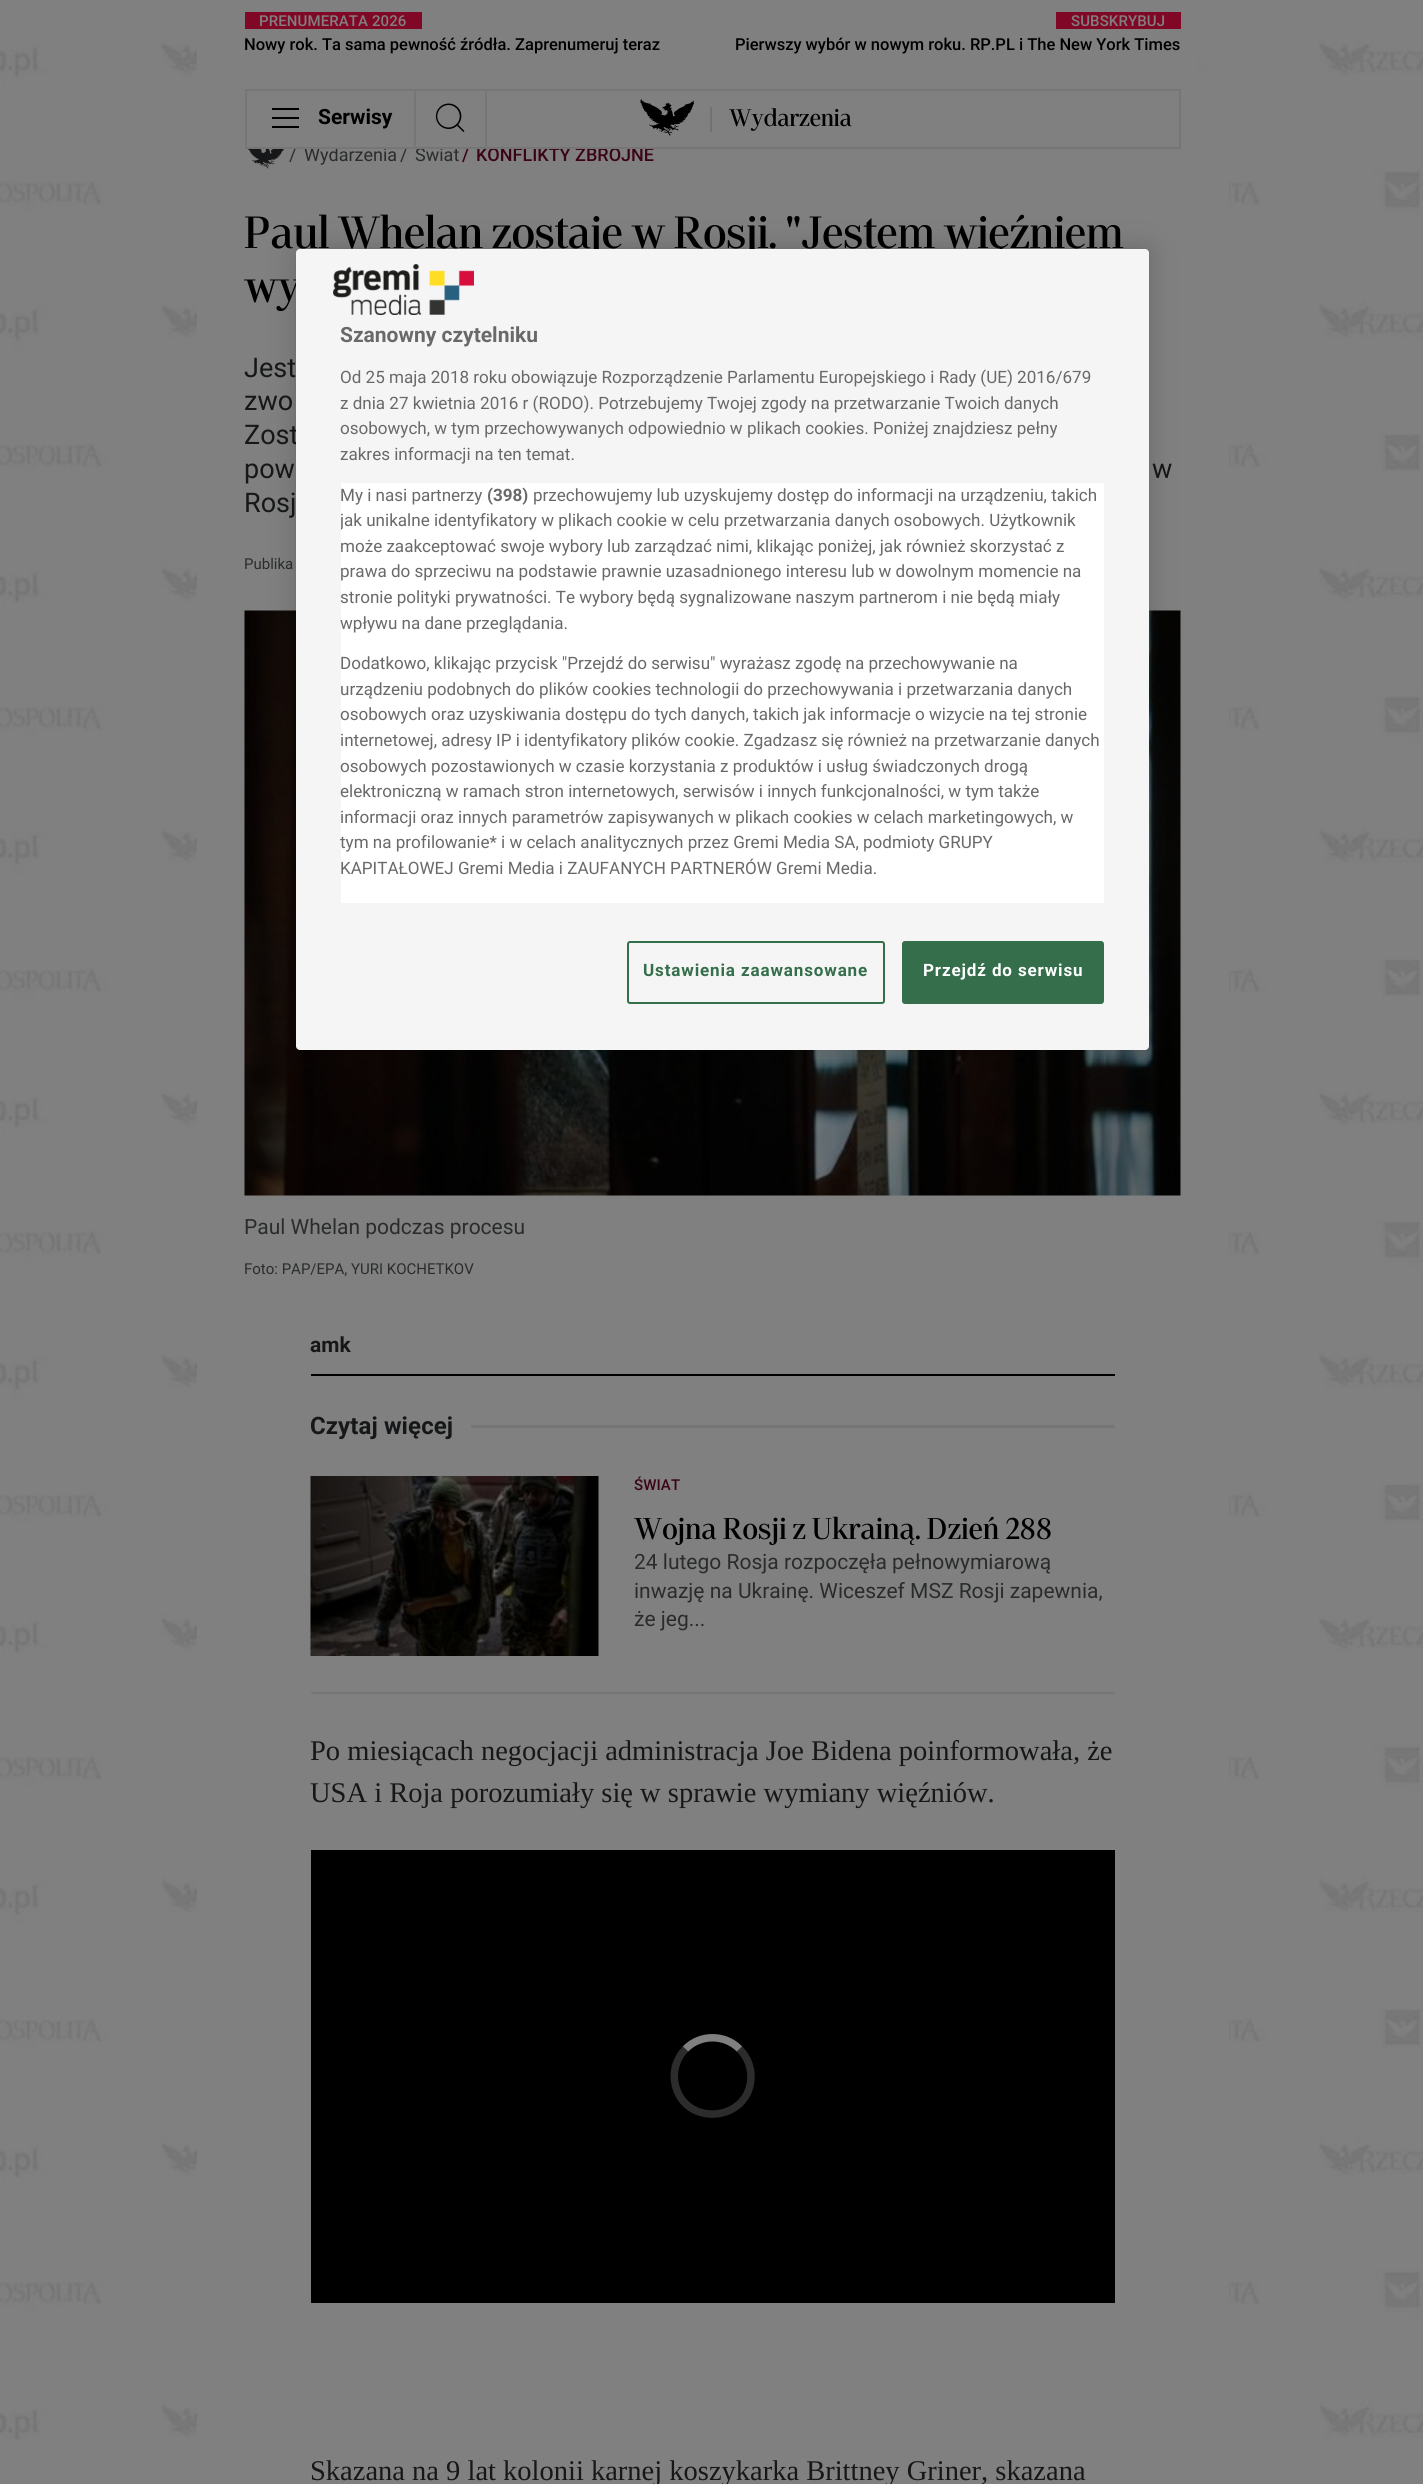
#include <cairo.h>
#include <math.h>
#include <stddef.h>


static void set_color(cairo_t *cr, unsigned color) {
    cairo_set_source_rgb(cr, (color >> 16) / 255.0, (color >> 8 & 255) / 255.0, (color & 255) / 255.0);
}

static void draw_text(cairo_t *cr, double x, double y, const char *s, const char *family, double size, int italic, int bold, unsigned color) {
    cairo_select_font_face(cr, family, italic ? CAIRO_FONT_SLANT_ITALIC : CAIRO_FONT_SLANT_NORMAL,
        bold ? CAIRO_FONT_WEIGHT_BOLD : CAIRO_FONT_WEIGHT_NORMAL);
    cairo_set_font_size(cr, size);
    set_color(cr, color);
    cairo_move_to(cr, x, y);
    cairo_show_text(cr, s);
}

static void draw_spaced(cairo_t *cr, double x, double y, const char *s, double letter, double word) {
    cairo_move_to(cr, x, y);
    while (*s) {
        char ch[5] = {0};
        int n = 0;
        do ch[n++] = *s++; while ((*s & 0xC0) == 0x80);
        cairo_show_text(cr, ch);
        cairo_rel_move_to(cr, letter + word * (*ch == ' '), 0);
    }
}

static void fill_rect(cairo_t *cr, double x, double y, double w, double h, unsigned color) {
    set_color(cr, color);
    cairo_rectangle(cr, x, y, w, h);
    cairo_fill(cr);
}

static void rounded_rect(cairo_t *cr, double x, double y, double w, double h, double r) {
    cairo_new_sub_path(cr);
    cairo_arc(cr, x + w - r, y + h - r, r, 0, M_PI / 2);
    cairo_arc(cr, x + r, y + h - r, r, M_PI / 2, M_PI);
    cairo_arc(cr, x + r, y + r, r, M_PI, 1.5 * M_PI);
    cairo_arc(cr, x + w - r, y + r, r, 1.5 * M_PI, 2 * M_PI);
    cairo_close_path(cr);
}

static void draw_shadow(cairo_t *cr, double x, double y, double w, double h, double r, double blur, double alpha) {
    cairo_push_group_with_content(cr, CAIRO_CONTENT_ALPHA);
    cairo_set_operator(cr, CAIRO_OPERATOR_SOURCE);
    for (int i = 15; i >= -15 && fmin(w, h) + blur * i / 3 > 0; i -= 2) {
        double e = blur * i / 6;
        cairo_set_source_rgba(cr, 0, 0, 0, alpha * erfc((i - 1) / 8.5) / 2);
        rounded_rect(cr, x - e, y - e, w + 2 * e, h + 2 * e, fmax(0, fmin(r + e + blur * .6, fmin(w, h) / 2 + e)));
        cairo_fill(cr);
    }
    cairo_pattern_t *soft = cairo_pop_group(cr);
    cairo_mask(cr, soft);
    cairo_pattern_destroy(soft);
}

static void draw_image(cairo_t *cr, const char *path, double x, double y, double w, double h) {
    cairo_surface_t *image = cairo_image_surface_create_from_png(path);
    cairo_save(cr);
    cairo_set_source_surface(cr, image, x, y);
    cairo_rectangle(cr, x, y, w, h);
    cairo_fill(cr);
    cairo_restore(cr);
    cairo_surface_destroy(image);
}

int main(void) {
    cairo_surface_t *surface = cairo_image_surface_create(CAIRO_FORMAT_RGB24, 1423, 2484);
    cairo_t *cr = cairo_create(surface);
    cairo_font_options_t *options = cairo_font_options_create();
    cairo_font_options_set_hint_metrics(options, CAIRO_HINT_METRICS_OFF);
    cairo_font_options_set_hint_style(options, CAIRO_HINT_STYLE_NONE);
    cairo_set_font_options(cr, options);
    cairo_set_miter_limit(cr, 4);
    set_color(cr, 0x808080);
    cairo_paint(cr);
    draw_image(cr, "assets/img3.png", 0, 40, 1423, 2401);
    draw_text(cr, 289, 161, "/", "Roboto", 18, 0, 0, 0x2A2C2C);
    draw_text(cr, 304, 161, "Wydarzenia", "Roboto", 18, 0, 0, 0x2A2C2C);
    draw_text(cr, 400, 161, "/", "Roboto", 18, 0, 0, 0x2A2C2C);
    draw_text(cr, 415, 161, "Świat", "Roboto", 18, 0, 0, 0x2A2C2C);
    draw_text(cr, 462, 161, "/", "Roboto Medium", 18, 0, 0, 0x3B0317);
    draw_text(cr, 476, 161, "KONFLIKTY ZBROJNE", "Roboto Medium", 18, 0, 0, 0x3B0317);
    fill_rect(cr, 197, 40, 1000, 109, 0x808080);
    fill_rect(cr, 245, 12, 177, 17, 0x800725);
    cairo_set_font_size(cr, 15);
    set_color(cr, 0x808080);
    draw_spaced(cr, 259, 26, "PRENUMERATA 2026", 0.1, 0);
    draw_text(cr, 244, 50, "Nowy rok. Ta sama pewność źródła. Zaprenumeruj teraz", "Roboto Medium", 16.5, 0, 0, 0x000000);
    fill_rect(cr, 1056, 12, 125, 17, 0x800725);
    cairo_set_font_size(cr, 15);
    set_color(cr, 0x808080);
    draw_spaced(cr, 1071, 26, "SUBSKRYBUJ", 0.1, 0);
    draw_text(cr, 735, 50, "Pierwszy wybór w nowym roku. RP.PL i The New York Times", "Roboto Medium", 16.5, 0, 0, 0x000000);
    fill_rect(cr, 245, 89, 936, 2, 0x767676);
    fill_rect(cr, 245, 147, 936, 2, 0x767676);
    fill_rect(cr, 1179, 90, 2, 57, 0x767676);
    fill_rect(cr, 414, 90, 2, 57, 0x767676);
    fill_rect(cr, 245, 90, 2, 57, 0x767676);
    fill_rect(cr, 272, 108, 27, 2, 0x000000);
    fill_rect(cr, 272, 117, 27, 2, 0x000000);
    fill_rect(cr, 272, 126, 27, 2, 0x000000);
    draw_text(cr, 318, 124, "Serwisy", "Roboto", 21, 0, 1, 0x000000);
    fill_rect(cr, 485, 90, 2, 57, 0x767676);
    draw_image(cr, "assets/img1.png", 435, 103, 30, 29);
    draw_image(cr, "assets/img2.png", 640, 99, 54, 37);
    fill_rect(cr, 710, 107, 2, 25, 0x727272);
    draw_text(cr, 729, 126, "Wydarzenia", "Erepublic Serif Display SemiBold", 24, 0, 0, 0x000000);
    fill_rect(cr, 197, 171, 1032, 2270, 0x808080);
    draw_image(cr, "assets/img4.png", 248, 149, 36, 20);
    draw_text(cr, 244, 248, "Paul Whelan zostaje w Rosji. \"Jestem więźniem", "Erepublic Serif Display SemiBold", 45, 0, 0, 0x000000);
    draw_text(cr, 244, 302, "wy", "Erepublic Serif Display SemiBold", 45, 0, 0, 0x000000);
    draw_text(cr, 244, 377, "Jest", "Roboto", 27, 0, 0, 0x161718);
    draw_text(cr, 244, 410, "zwo", "Roboto", 27, 0, 0, 0x161718);
    draw_text(cr, 244, 444, "Zost", "Roboto", 27, 0, 0, 0x161718);
    draw_text(cr, 244, 478, "pow", "Roboto", 27, 0, 0, 0x161718);
    draw_text(cr, 1152, 478, "w", "Roboto", 27, 0, 0, 0x161718);
    draw_text(cr, 244, 512, "Rosj", "Roboto", 27, 0, 0, 0x161718);
    draw_text(cr, 244, 569, "Publika", "Roboto", 15, 0, 0, 0x2A2C2C);
    draw_image(cr, "assets/img5.png", 244, 610, 937, 586);
    draw_text(cr, 244, 1234, "Paul Whelan podczas procesu", "Roboto", 21, 0, 0, 0x2A2C2C);
    draw_text(cr, 244, 1274, "Foto: PAP/EPA, YURI KOCHETKOV", "Roboto", 15, 0, 0, 0x2A2C2C);
    fill_rect(cr, 311, 1374, 804, 2, 0x000000);
    draw_text(cr, 310, 1352, "amk", "Roboto", 21, 0, 1, 0x161718);
    fill_rect(cr, 311, 1692, 804, 2, 0x767676);
    cairo_set_font_size(cr, 24);
    set_color(cr, 0x161718);
    draw_spaced(cr, 310, 1434, "Czytaj więcej", 0.1, 0);
    fill_rect(cr, 471, 1425, 644, 3, 0x767676);
    draw_image(cr, "assets/img6.png", 310, 1476, 289, 180);
    cairo_select_font_face(cr, "Roboto Medium", CAIRO_FONT_SLANT_NORMAL, CAIRO_FONT_WEIGHT_NORMAL);
    cairo_set_font_size(cr, 15);
    set_color(cr, 0x3B0317);
    draw_spaced(cr, 634, 1490, "ŚWIAT", 0.1, 0);
    cairo_select_font_face(cr, "Erepublic Serif Display SemiBold", CAIRO_FONT_SLANT_NORMAL, CAIRO_FONT_WEIGHT_NORMAL);
    cairo_set_font_size(cr, 30);
    set_color(cr, 0x000000);
    draw_spaced(cr, 634, 1539, "Wojna Rosji z Ukrainą. Dzień 288", 0.15, 0);
    draw_text(cr, 634, 1569, "24 lutego Rosja rozpoczęła pełnowymiarową", "Roboto", 21, 0, 0, 0x2A2C2C);
    draw_text(cr, 634, 1598, "inwazję na Ukrainę. Wiceszef MSZ Rosji zapewnia,", "Roboto", 21, 0, 0, 0x2A2C2C);
    draw_text(cr, 634, 1626, "że jeg...", "Roboto", 21, 0, 0, 0x2A2C2C);
    draw_text(cr, 310, 1760, "Po miesiącach negocjacji administracja Joe Bidena poinformowała, że", "Liberation Serif", 28.5, 0, 0, 0x161718);
    draw_text(cr, 310, 1802, "USA i Roja porozumiały się w sprawie wymiany więźniów.", "Liberation Serif", 28.5, 0, 0, 0x161718);
    fill_rect(cr, 311, 1850, 804, 453, 0x000000);
    cairo_new_path(cr);
    cairo_move_to(cr, 685.5, 2049);
    cairo_curve_to(cr, 700, 2034, 725, 2034, 739.5, 2049);
    set_color(cr, 0x808080);
    cairo_set_line_width(cr, 7.5);
    cairo_stroke(cr);
    cairo_new_path(cr);
    cairo_move_to(cr, 739.5, 2049);
    cairo_curve_to(cr, 746.5, 2056, 751, 2066, 751, 2076);
    cairo_curve_to(cr, 751, 2122, 684, 2128.5, 675, 2083.5);
    cairo_curve_to(cr, 672.5, 2071, 676.5, 2058, 685.5, 2049);
    cairo_set_source_rgba(cr, 0.502, 0.502, 0.502, 0.35);
    cairo_stroke(cr);
    draw_text(cr, 310, 2480, "Skazana na 9 lat kolonii karnej koszykarka Brittney Griner, skazana", "Liberation Serif", 28.5, 0, 0, 0x161718);
    set_color(cr, 0x000000);
    draw_shadow(cr, 296, 249, 853, 801, 4, 13.5, 0.2);
    set_color(cr, 0xF5F5F5);
    rounded_rect(cr, 296, 249, 853, 801, 4);
    cairo_fill(cr);
    draw_image(cr, "assets/img7.png", 333, 264, 141, 51);
    draw_text(cr, 340, 342, "Szanowny czytelniku", "Roboto", 21, 0, 1, 0x696969);
    draw_text(cr, 340, 383, "Od 25 maja 2018 roku obowiązuje Rozporządzenie Parlamentu Europejskiego i Rady (UE) 2016/679", "Roboto", 17.05, 0, 0, 0x696969);
    draw_text(cr, 340, 409, "z dnia 27 kwietnia 2016 r (RODO). Potrzebujemy Twojej zgody na przetwarzanie Twoich danych", "Roboto", 17.05, 0, 0, 0x696969);
    draw_text(cr, 340, 434, "osobowych, w tym przechowywanych odpowiednio w plikach cookies. Poniżej znajdziesz pełny", "Roboto", 17.05, 0, 0, 0x696969);
    draw_text(cr, 340, 460, "zakres informacji na ten temat.", "Roboto", 17.05, 0, 0, 0x696969);
    fill_rect(cr, 341, 483, 763, 420, 0xFFFFFF);
    draw_text(cr, 340, 501, "My i nasi partnerzy", "Roboto", 17.05, 0, 0, 0x696969);
    draw_text(cr, 487, 501, "(398)", "Roboto", 17.05, 0, 1, 0x696969);
    draw_text(cr, 533, 501, "przechowujemy lub uzyskujemy dostęp do informacji na urządzeniu, takich", "Roboto", 17.05, 0, 0, 0x696969);
    cairo_save(cr);
    cairo_rectangle(cr, 341, 483, 763, 420);
    cairo_clip(cr);
    draw_text(cr, 340, 526, "jak unikalne identyfikatory w plikach cookie w celu przetwarzania danych osobowych. Użytkownik", "Roboto", 17.05, 0, 0, 0x696969);
    cairo_restore(cr);
    draw_text(cr, 340, 552, "może zaakceptować swoje wybory lub zarządzać nimi, klikając poniżej, jak również skorzystać z", "Roboto", 17.05, 0, 0, 0x696969);
    draw_text(cr, 340, 577, "prawa do sprzeciwu na podstawie prawnie uzasadnionego interesu lub w dowolnym momencie na", "Roboto", 17.05, 0, 0, 0x696969);
    draw_text(cr, 340, 603, "stronie polityki prywatności. Te wybory będą sygnalizowane naszym partnerom i nie będą miały", "Roboto", 17.05, 0, 0, 0x696969);
    draw_text(cr, 340, 629, "wpływu na dane przeglądania.", "Roboto", 17.05, 0, 0, 0x696969);
    draw_text(cr, 340, 669, "Dodatkowo, klikając przycisk \"Przejdź do serwisu\" wyrażasz zgodę na przechowywanie na", "Roboto", 17.05, 0, 0, 0x696969);
    draw_text(cr, 340, 695, "urządzeniu podobnych do plików cookies technologii do przechowywania i przetwarzania danych", "Roboto", 17.05, 0, 0, 0x696969);
    draw_text(cr, 340, 720, "osobowych oraz uzyskiwania dostępu do tych danych, takich jak informacje o wizycie na tej stronie", "Roboto", 17.05, 0, 0, 0x696969);
    draw_text(cr, 340, 746, "internetowej, adresy IP i identyfikatory plików cookie. Zgadzasz się również na przetwarzanie danych", "Roboto", 17.05, 0, 0, 0x696969);
    draw_text(cr, 340, 772, "osobowych pozostawionych w czasie korzystania z produktów i usług świadczonych drogą", "Roboto", 17.05, 0, 0, 0x696969);
    draw_text(cr, 340, 797, "elektroniczną w ramach stron internetowych, serwisów i innych funkcjonalności, w tym także", "Roboto", 17.05, 0, 0, 0x696969);
    draw_text(cr, 340, 823, "informacji oraz innych parametrów zapisywanych w plikach cookies w celach marketingowych, w", "Roboto", 17.05, 0, 0, 0x696969);
    draw_text(cr, 340, 848, "tym na profilowanie* i w celach analitycznych przez Gremi Media SA, podmioty GRUPY", "Roboto", 17.05, 0, 0, 0x696969);
    draw_text(cr, 340, 874, "KAPITAŁOWEJ Gremi Media i ZAUFANYCH PARTNERÓW Gremi Media.", "Roboto", 17.05, 0, 0, 0x696969);
    rounded_rect(cr, 628, 942, 256, 61, 2);
    set_color(cr, 0x346E4A);
    cairo_set_line_width(cr, 2);
    cairo_stroke(cr);
    cairo_select_font_face(cr, "Roboto", CAIRO_FONT_SLANT_NORMAL, CAIRO_FONT_WEIGHT_BOLD);
    draw_spaced(cr, 643, 976, "Ustawienia zaawansowane", 0.85, 0);
    rounded_rect(cr, 903, 942, 200, 61, 2);
    cairo_fill_preserve(cr);
    cairo_stroke(cr);
    set_color(cr, 0xFFFFFF);
    draw_spaced(cr, 923, 976, "Przejdź do serwisu", 0.85, 0);
    cairo_surface_write_to_png(surface, "output.png");
    cairo_font_options_destroy(options);
    cairo_destroy(cr);
    cairo_surface_destroy(surface);
    return 0;
}
